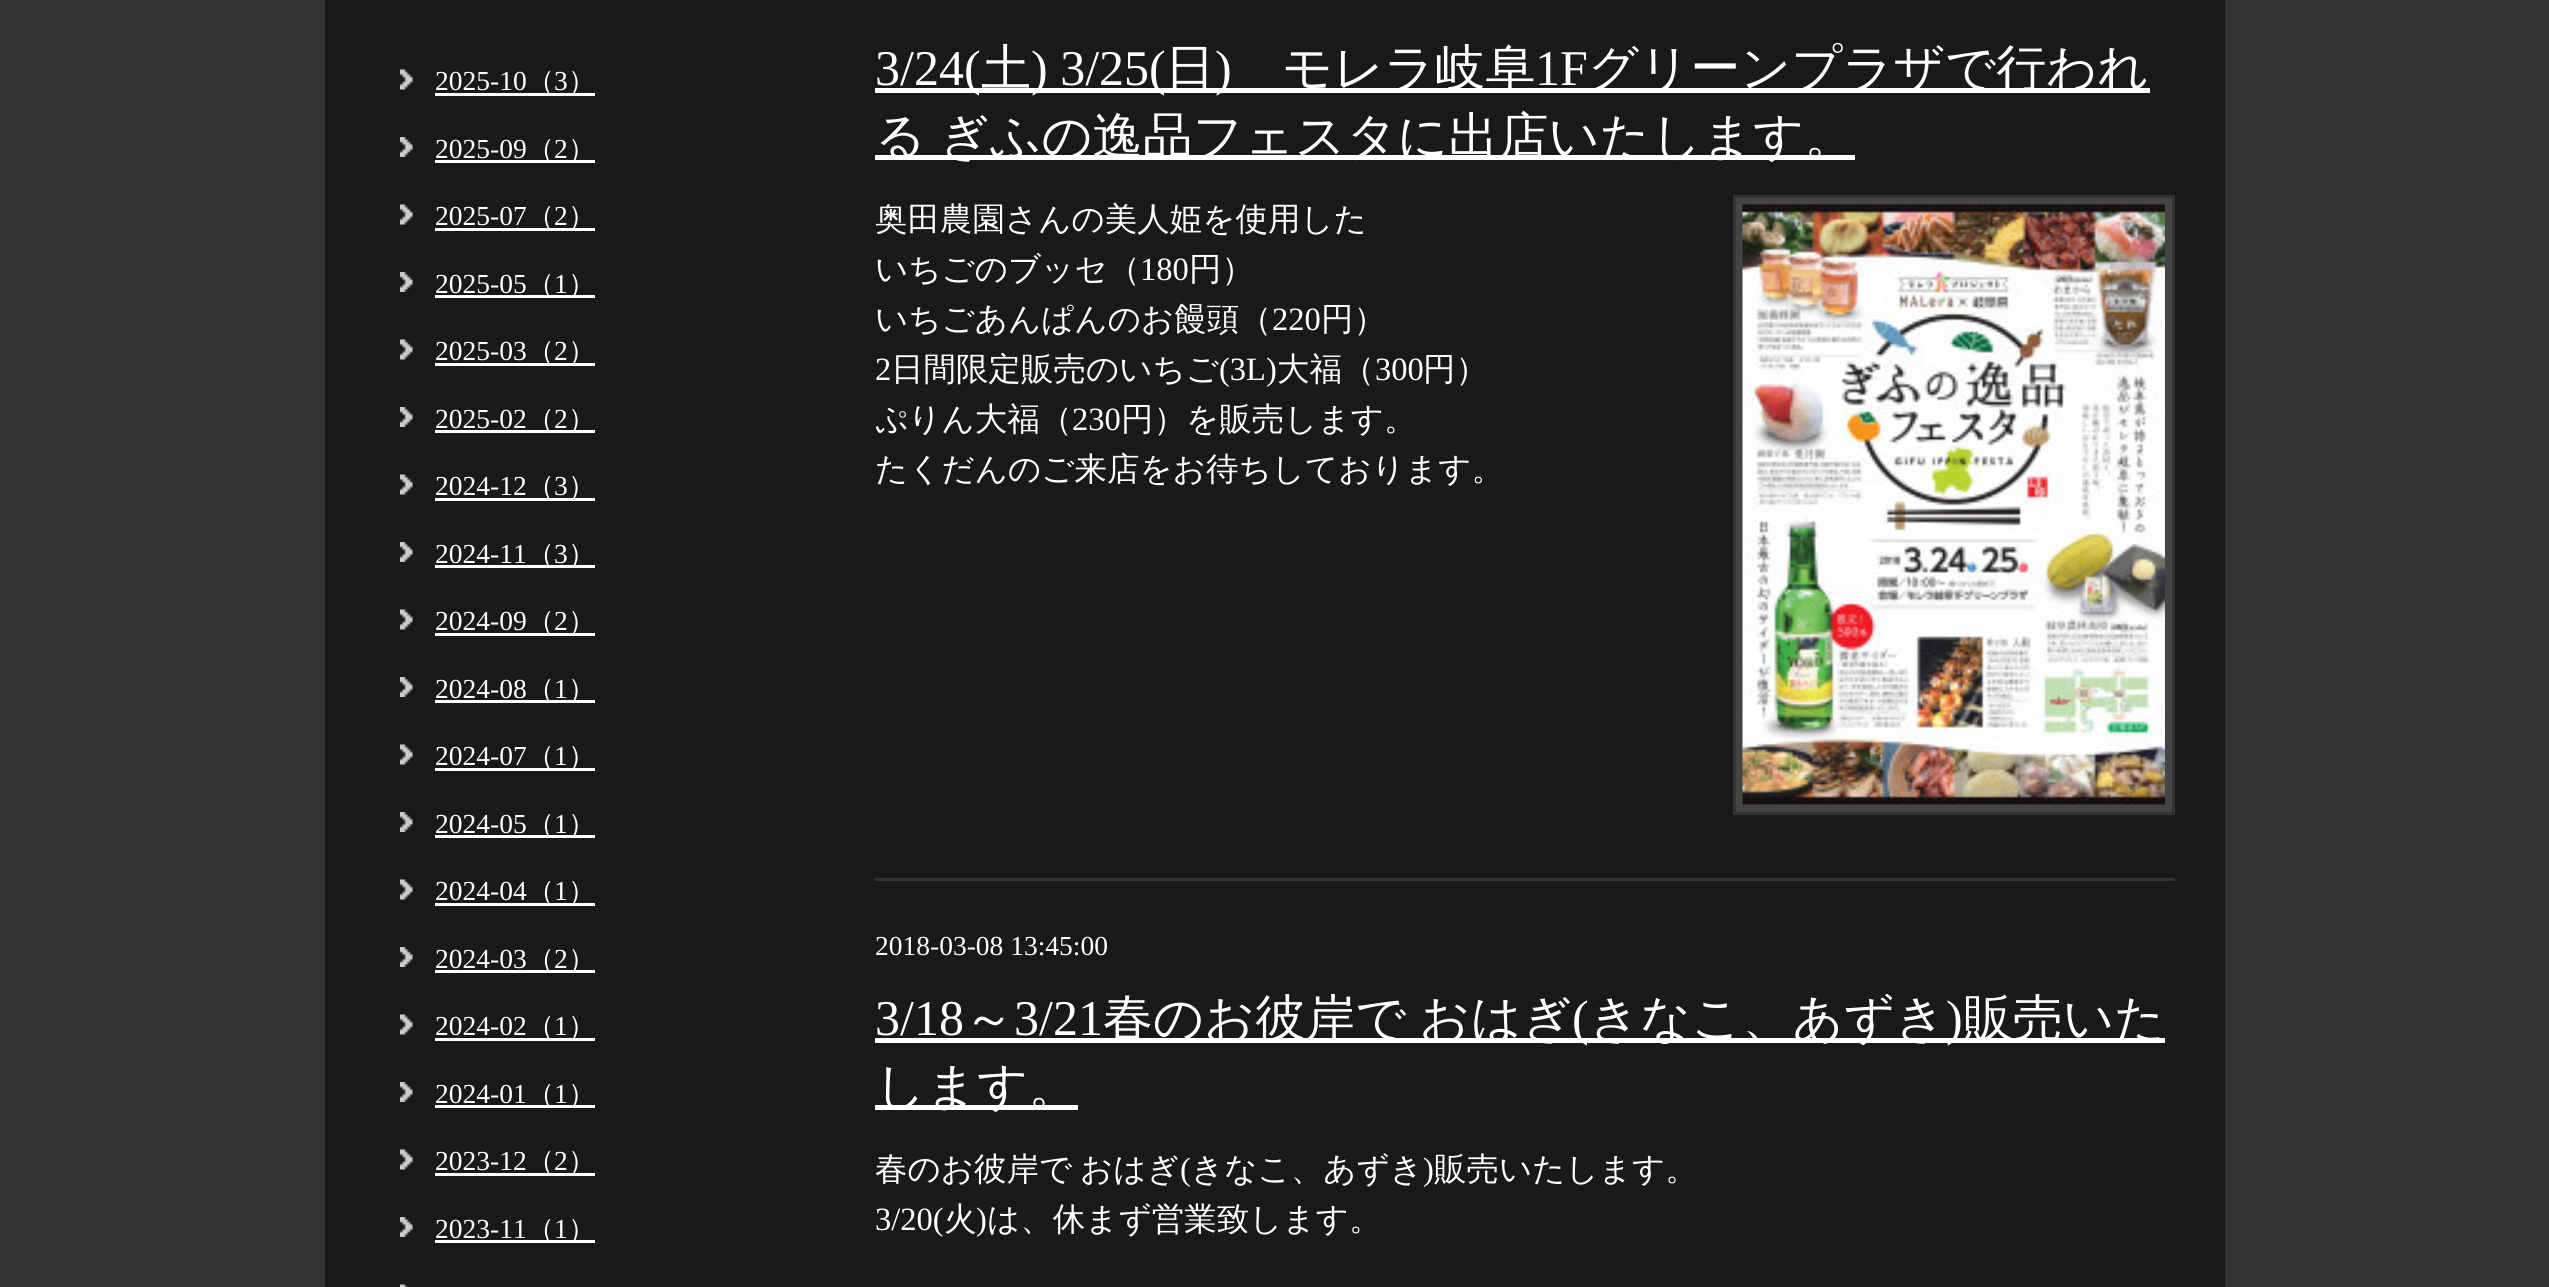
#include <cairo.h>
#include <math.h>
#include <stddef.h>


static void set_color(cairo_t *cr, unsigned color) {
    cairo_set_source_rgb(cr, (color >> 16) / 255.0, (color >> 8 & 255) / 255.0, (color & 255) / 255.0);
}

static void draw_text(cairo_t *cr, double x, double y, const char *s, const char *family, double size, int italic, int bold, unsigned color) {
    cairo_select_font_face(cr, family, italic ? CAIRO_FONT_SLANT_ITALIC : CAIRO_FONT_SLANT_NORMAL,
        bold ? CAIRO_FONT_WEIGHT_BOLD : CAIRO_FONT_WEIGHT_NORMAL);
    cairo_set_font_size(cr, size);
    set_color(cr, color);
    cairo_move_to(cr, x, y);
    cairo_show_text(cr, s);
}

static void draw_spaced(cairo_t *cr, double x, double y, const char *s, double letter, double word) {
    cairo_move_to(cr, x, y);
    while (*s) {
        char ch[5] = {0};
        int n = 0;
        do ch[n++] = *s++; while ((*s & 0xC0) == 0x80);
        cairo_show_text(cr, ch);
        cairo_rel_move_to(cr, letter + word * (*ch == ' '), 0);
    }
}

static void fill_rect(cairo_t *cr, double x, double y, double w, double h, unsigned color) {
    set_color(cr, color);
    cairo_rectangle(cr, x, y, w, h);
    cairo_fill(cr);
}

static void draw_image(cairo_t *cr, const char *path, double x, double y, double w, double h) {
    cairo_surface_t *image = cairo_image_surface_create_from_png(path);
    cairo_save(cr);
    cairo_set_source_surface(cr, image, x, y);
    cairo_rectangle(cr, x, y, w, h);
    cairo_fill(cr);
    cairo_restore(cr);
    cairo_surface_destroy(image);
}

int main(void) {
    cairo_surface_t *surface = cairo_image_surface_create(CAIRO_FORMAT_RGB24, 2549, 1287);
    cairo_t *cr = cairo_create(surface);
    cairo_font_options_t *options = cairo_font_options_create();
    cairo_font_options_set_hint_metrics(options, CAIRO_HINT_METRICS_OFF);
    cairo_font_options_set_hint_style(options, CAIRO_HINT_STYLE_NONE);
    cairo_set_font_options(cr, options);
    cairo_set_miter_limit(cr, 4);
    set_color(cr, 0x333333);
    cairo_paint(cr);
    fill_rect(cr, 325, 0, 1900, 1287, 0x191919);
    draw_image(cr, "assets/img1.png", 400, 69, 13, 21);
    draw_text(cr, 435, 90, "2025-10", "Liberation Serif", 27.5, 0, 0, 0xFFFFFF);
    fill_rect(cr, 435, 93, 160, 3, 0xFFFFFF);
    draw_text(cr, 527, 90, "（", "WenQuanYi Zen Hei Medium", 27.5, 0, 0, 0xFFFFFF);
    draw_text(cr, 554, 90, "3", "Liberation Serif", 27.5, 0, 0, 0xFFFFFF);
    draw_text(cr, 568, 90, "）", "WenQuanYi Zen Hei Medium", 27.5, 0, 0, 0xFFFFFF);
    draw_image(cr, "assets/img2.png", 400, 137, 13, 20);
    draw_text(cr, 435, 158, "2025-09", "Liberation Serif", 27.5, 0, 0, 0xFFFFFF);
    fill_rect(cr, 435, 160, 160, 3, 0xFFFFFF);
    draw_text(cr, 527, 158, "（", "WenQuanYi Zen Hei Medium", 27.5, 0, 0, 0xFFFFFF);
    draw_text(cr, 554, 158, "2", "Liberation Serif", 27.5, 0, 0, 0xFFFFFF);
    draw_text(cr, 568, 158, "）", "WenQuanYi Zen Hei Medium", 27.5, 0, 0, 0xFFFFFF);
    draw_image(cr, "assets/img1.png", 400, 204, 13, 21);
    draw_text(cr, 435, 225, "2025-07", "Liberation Serif", 27.5, 0, 0, 0xFFFFFF);
    fill_rect(cr, 435, 228, 160, 3, 0xFFFFFF);
    draw_text(cr, 527, 225, "（", "WenQuanYi Zen Hei Medium", 27.5, 0, 0, 0xFFFFFF);
    draw_text(cr, 554, 225, "2", "Liberation Serif", 27.5, 0, 0, 0xFFFFFF);
    draw_text(cr, 568, 225, "）", "WenQuanYi Zen Hei Medium", 27.5, 0, 0, 0xFFFFFF);
    draw_image(cr, "assets/img2.png", 400, 272, 13, 20);
    draw_text(cr, 435, 293, "2025-05", "Liberation Serif", 27.5, 0, 0, 0xFFFFFF);
    fill_rect(cr, 435, 295, 160, 3, 0xFFFFFF);
    draw_text(cr, 527, 293, "（", "WenQuanYi Zen Hei Medium", 27.5, 0, 0, 0xFFFFFF);
    draw_text(cr, 554, 293, "1", "Liberation Serif", 27.5, 0, 0, 0xFFFFFF);
    draw_text(cr, 568, 293, "）", "WenQuanYi Zen Hei Medium", 27.5, 0, 0, 0xFFFFFF);
    draw_image(cr, "assets/img1.png", 400, 339, 13, 21);
    draw_text(cr, 435, 360, "2025-03", "Liberation Serif", 27.5, 0, 0, 0xFFFFFF);
    fill_rect(cr, 435, 363, 160, 3, 0xFFFFFF);
    draw_text(cr, 527, 360, "（", "WenQuanYi Zen Hei Medium", 27.5, 0, 0, 0xFFFFFF);
    draw_text(cr, 554, 360, "2", "Liberation Serif", 27.5, 0, 0, 0xFFFFFF);
    draw_text(cr, 568, 360, "）", "WenQuanYi Zen Hei Medium", 27.5, 0, 0, 0xFFFFFF);
    draw_image(cr, "assets/img2.png", 400, 407, 13, 20);
    draw_text(cr, 435, 428, "2025-02", "Liberation Serif", 27.5, 0, 0, 0xFFFFFF);
    fill_rect(cr, 435, 430, 160, 3, 0xFFFFFF);
    draw_text(cr, 527, 428, "（", "WenQuanYi Zen Hei Medium", 27.5, 0, 0, 0xFFFFFF);
    draw_text(cr, 554, 428, "2", "Liberation Serif", 27.5, 0, 0, 0xFFFFFF);
    draw_text(cr, 568, 428, "）", "WenQuanYi Zen Hei Medium", 27.5, 0, 0, 0xFFFFFF);
    draw_image(cr, "assets/img1.png", 400, 474, 13, 21);
    draw_text(cr, 435, 495, "2024-12", "Liberation Serif", 27.5, 0, 0, 0xFFFFFF);
    fill_rect(cr, 435, 498, 160, 3, 0xFFFFFF);
    draw_text(cr, 527, 495, "（", "WenQuanYi Zen Hei Medium", 27.5, 0, 0, 0xFFFFFF);
    draw_text(cr, 554, 495, "3", "Liberation Serif", 27.5, 0, 0, 0xFFFFFF);
    draw_text(cr, 568, 495, "）", "WenQuanYi Zen Hei Medium", 27.5, 0, 0, 0xFFFFFF);
    draw_image(cr, "assets/img2.png", 400, 542, 13, 20);
    draw_text(cr, 435, 563, "2024-11", "Liberation Serif", 27.5, 0, 0, 0xFFFFFF);
    fill_rect(cr, 435, 565, 160, 3, 0xFFFFFF);
    draw_text(cr, 527, 563, "（", "WenQuanYi Zen Hei Medium", 27.5, 0, 0, 0xFFFFFF);
    draw_text(cr, 554, 563, "3", "Liberation Serif", 27.5, 0, 0, 0xFFFFFF);
    draw_text(cr, 568, 563, "）", "WenQuanYi Zen Hei Medium", 27.5, 0, 0, 0xFFFFFF);
    draw_image(cr, "assets/img1.png", 400, 609, 13, 21);
    draw_text(cr, 435, 630, "2024-09", "Liberation Serif", 27.5, 0, 0, 0xFFFFFF);
    fill_rect(cr, 435, 633, 160, 3, 0xFFFFFF);
    draw_text(cr, 527, 630, "（", "WenQuanYi Zen Hei Medium", 27.5, 0, 0, 0xFFFFFF);
    draw_text(cr, 554, 630, "2", "Liberation Serif", 27.5, 0, 0, 0xFFFFFF);
    draw_text(cr, 568, 630, "）", "WenQuanYi Zen Hei Medium", 27.5, 0, 0, 0xFFFFFF);
    draw_image(cr, "assets/img2.png", 400, 677, 13, 20);
    draw_text(cr, 435, 698, "2024-08", "Liberation Serif", 27.5, 0, 0, 0xFFFFFF);
    fill_rect(cr, 435, 700, 160, 3, 0xFFFFFF);
    draw_text(cr, 527, 698, "（", "WenQuanYi Zen Hei Medium", 27.5, 0, 0, 0xFFFFFF);
    draw_text(cr, 554, 698, "1", "Liberation Serif", 27.5, 0, 0, 0xFFFFFF);
    draw_text(cr, 568, 698, "）", "WenQuanYi Zen Hei Medium", 27.5, 0, 0, 0xFFFFFF);
    draw_image(cr, "assets/img1.png", 400, 744, 13, 21);
    draw_text(cr, 435, 765, "2024-07", "Liberation Serif", 27.5, 0, 0, 0xFFFFFF);
    fill_rect(cr, 435, 768, 160, 3, 0xFFFFFF);
    draw_text(cr, 527, 765, "（", "WenQuanYi Zen Hei Medium", 27.5, 0, 0, 0xFFFFFF);
    draw_text(cr, 554, 765, "1", "Liberation Serif", 27.5, 0, 0, 0xFFFFFF);
    draw_text(cr, 568, 765, "）", "WenQuanYi Zen Hei Medium", 27.5, 0, 0, 0xFFFFFF);
    draw_image(cr, "assets/img2.png", 400, 812, 13, 20);
    draw_text(cr, 435, 833, "2024-05", "Liberation Serif", 27.5, 0, 0, 0xFFFFFF);
    fill_rect(cr, 435, 835, 160, 3, 0xFFFFFF);
    draw_text(cr, 527, 833, "（", "WenQuanYi Zen Hei Medium", 27.5, 0, 0, 0xFFFFFF);
    draw_text(cr, 554, 833, "1", "Liberation Serif", 27.5, 0, 0, 0xFFFFFF);
    draw_text(cr, 568, 833, "）", "WenQuanYi Zen Hei Medium", 27.5, 0, 0, 0xFFFFFF);
    draw_image(cr, "assets/img1.png", 400, 879, 13, 21);
    draw_text(cr, 435, 900, "2024-04", "Liberation Serif", 27.5, 0, 0, 0xFFFFFF);
    fill_rect(cr, 435, 903, 160, 3, 0xFFFFFF);
    draw_text(cr, 527, 900, "（", "WenQuanYi Zen Hei Medium", 27.5, 0, 0, 0xFFFFFF);
    draw_text(cr, 554, 900, "1", "Liberation Serif", 27.5, 0, 0, 0xFFFFFF);
    draw_text(cr, 568, 900, "）", "WenQuanYi Zen Hei Medium", 27.5, 0, 0, 0xFFFFFF);
    draw_image(cr, "assets/img2.png", 400, 947, 13, 20);
    draw_text(cr, 435, 968, "2024-03", "Liberation Serif", 27.5, 0, 0, 0xFFFFFF);
    fill_rect(cr, 435, 970, 160, 3, 0xFFFFFF);
    draw_text(cr, 527, 968, "（", "WenQuanYi Zen Hei Medium", 27.5, 0, 0, 0xFFFFFF);
    draw_text(cr, 554, 968, "2", "Liberation Serif", 27.5, 0, 0, 0xFFFFFF);
    draw_text(cr, 568, 968, "）", "WenQuanYi Zen Hei Medium", 27.5, 0, 0, 0xFFFFFF);
    draw_image(cr, "assets/img1.png", 400, 1014, 13, 21);
    draw_text(cr, 435, 1035, "2024-02", "Liberation Serif", 27.5, 0, 0, 0xFFFFFF);
    fill_rect(cr, 435, 1038, 160, 3, 0xFFFFFF);
    draw_text(cr, 527, 1035, "（", "WenQuanYi Zen Hei Medium", 27.5, 0, 0, 0xFFFFFF);
    draw_text(cr, 554, 1035, "1", "Liberation Serif", 27.5, 0, 0, 0xFFFFFF);
    draw_text(cr, 568, 1035, "）", "WenQuanYi Zen Hei Medium", 27.5, 0, 0, 0xFFFFFF);
    draw_image(cr, "assets/img2.png", 400, 1082, 13, 20);
    draw_text(cr, 435, 1103, "2024-01", "Liberation Serif", 27.5, 0, 0, 0xFFFFFF);
    fill_rect(cr, 435, 1105, 160, 3, 0xFFFFFF);
    draw_text(cr, 527, 1103, "（", "WenQuanYi Zen Hei Medium", 27.5, 0, 0, 0xFFFFFF);
    draw_text(cr, 554, 1103, "1", "Liberation Serif", 27.5, 0, 0, 0xFFFFFF);
    draw_text(cr, 568, 1103, "）", "WenQuanYi Zen Hei Medium", 27.5, 0, 0, 0xFFFFFF);
    draw_image(cr, "assets/img1.png", 400, 1149, 13, 21);
    draw_text(cr, 435, 1170, "2023-12", "Liberation Serif", 27.5, 0, 0, 0xFFFFFF);
    fill_rect(cr, 435, 1173, 160, 3, 0xFFFFFF);
    draw_text(cr, 527, 1170, "（", "WenQuanYi Zen Hei Medium", 27.5, 0, 0, 0xFFFFFF);
    draw_text(cr, 554, 1170, "2", "Liberation Serif", 27.5, 0, 0, 0xFFFFFF);
    draw_text(cr, 568, 1170, "）", "WenQuanYi Zen Hei Medium", 27.5, 0, 0, 0xFFFFFF);
    draw_image(cr, "assets/img2.png", 400, 1217, 13, 20);
    draw_text(cr, 435, 1238, "2023-11", "Liberation Serif", 27.5, 0, 0, 0xFFFFFF);
    fill_rect(cr, 435, 1240, 160, 3, 0xFFFFFF);
    draw_text(cr, 527, 1238, "（", "WenQuanYi Zen Hei Medium", 27.5, 0, 0, 0xFFFFFF);
    draw_text(cr, 554, 1238, "1", "Liberation Serif", 27.5, 0, 0, 0xFFFFFF);
    draw_text(cr, 568, 1238, "）", "WenQuanYi Zen Hei Medium", 27.5, 0, 0, 0xFFFFFF);
    draw_image(cr, "assets/img3.png", 400, 1284, 9, 3);
    fill_rect(cr, 875, 878, 1300, 3, 0x333333);
    fill_rect(cr, 875, 88, 1275, 5, 0xFFFFFF);
    draw_text(cr, 875, 85, "3/24(", "Liberation Serif", 50, 0, 0, 0xFFFFFF);
    draw_text(cr, 981, 85, "土", "WenQuanYi Zen Hei Medium", 50, 0, 0, 0xFFFFFF);
    draw_text(cr, 1031, 85, ") 3/25(", "Liberation Serif", 50, 0, 0, 0xFFFFFF);
    draw_text(cr, 1165, 85, "日", "WenQuanYi Zen Hei Medium", 50, 0, 0, 0xFFFFFF);
    draw_text(cr, 1215, 85, ")", "Liberation Serif", 50, 0, 0, 0xFFFFFF);
    draw_text(cr, 1282, 85, "モレラ岐阜", "WenQuanYi Zen Hei Medium", 50, 0, 0, 0xFFFFFF);
    draw_text(cr, 1535, 85, "1F", "Liberation Serif", 50, 0, 0, 0xFFFFFF);
    draw_text(cr, 1588, 85, "グリーンプラザで行われ", "WenQuanYi Zen Hei Medium", 50, 0, 0, 0xFFFFFF);
    fill_rect(cr, 875, 155, 980, 5, 0xFFFFFF);
    draw_spaced(cr, 875, 153, "る ぎふの逸品フェスタに出店いたします。", 0, -2);
    draw_text(cr, 875, 230, "奥田農園さんの美人姫を使用した", "WenQuanYi Zen Hei Medium", 32.5, 0, 0, 0xFFFFFF);
    set_color(cr, 0x444444);
    cairo_rectangle(cr, 1734.5, 196.5, 439, 617);
    cairo_fill_preserve(cr);
    set_color(cr, 0x333333);
    cairo_set_line_width(cr, 3);
    cairo_stroke(cr);
    draw_image(cr, "assets/img4.png", 1742, 204, 423, 601);
    draw_text(cr, 875, 280, "いちごのブッセ（", "WenQuanYi Zen Hei Medium", 32.5, 0, 0, 0xFFFFFF);
    draw_text(cr, 1140, 280, "180", "Liberation Serif", 32.5, 0, 0, 0xFFFFFF);
    draw_text(cr, 1189, 280, "円）", "WenQuanYi Zen Hei Medium", 32.5, 0, 0, 0xFFFFFF);
    draw_text(cr, 875, 330, "いちごあんぱんのお饅頭（", "WenQuanYi Zen Hei Medium", 32.5, 0, 0, 0xFFFFFF);
    draw_text(cr, 1272, 330, "220", "Liberation Serif", 32.5, 0, 0, 0xFFFFFF);
    draw_text(cr, 1321, 330, "円）", "WenQuanYi Zen Hei Medium", 32.5, 0, 0, 0xFFFFFF);
    draw_text(cr, 875, 380, "2", "Liberation Serif", 32.5, 0, 0, 0xFFFFFF);
    draw_text(cr, 891, 380, "日間限定販売のいちご", "WenQuanYi Zen Hei Medium", 32.5, 0, 0, 0xFFFFFF);
    draw_text(cr, 1219, 380, "(3L)", "Liberation Serif", 32.5, 0, 0, 0xFFFFFF);
    draw_text(cr, 1277, 380, "大福（", "WenQuanYi Zen Hei Medium", 32.5, 0, 0, 0xFFFFFF);
    draw_text(cr, 1375, 380, "300", "Liberation Serif", 32.5, 0, 0, 0xFFFFFF);
    draw_text(cr, 1423, 380, "円）", "WenQuanYi Zen Hei Medium", 32.5, 0, 0, 0xFFFFFF);
    draw_text(cr, 875, 430, "ぷりん大福（", "WenQuanYi Zen Hei Medium", 32.5, 0, 0, 0xFFFFFF);
    draw_text(cr, 1072, 430, "230", "Liberation Serif", 32.5, 0, 0, 0xFFFFFF);
    draw_text(cr, 1121, 430, "円）を販売します。", "WenQuanYi Zen Hei Medium", 32.5, 0, 0, 0xFFFFFF);
    draw_text(cr, 875, 480, "たくだんのご来店をお待ちしております。", "WenQuanYi Zen Hei Medium", 32.5, 0, 0, 0xFFFFFF);
    draw_text(cr, 875, 955, "2018-03-08 13:45:00", "Liberation Serif", 27.5, 0, 0, 0xFFFFFF);
    draw_text(cr, 875, 1035, "3/18", "Liberation Serif", 50, 0, 0, 0xFFFFFF);
    draw_text(cr, 964, 1035, "～", "WenQuanYi Zen Hei Medium", 50, 0, 0, 0xFFFFFF);
    draw_text(cr, 1014, 1035, "3/21", "Liberation Serif", 50, 0, 0, 0xFFFFFF);
    fill_rect(cr, 875, 1038, 1290, 5, 0xFFFFFF);
    cairo_select_font_face(cr, "WenQuanYi Zen Hei Medium", CAIRO_FONT_SLANT_NORMAL, CAIRO_FONT_WEIGHT_NORMAL);
    draw_spaced(cr, 1103, 1035, "春のお彼岸で おはぎ", 0, -2);
    draw_text(cr, 1572, 1035, "(", "Liberation Serif", 50, 0, 0, 0xFFFFFF);
    draw_text(cr, 1589, 1035, "きなこ、あずき", "WenQuanYi Zen Hei Medium", 50, 0, 0, 0xFFFFFF);
    draw_text(cr, 1946, 1035, ")", "Liberation Serif", 50, 0, 0, 0xFFFFFF);
    draw_text(cr, 1963, 1035, "販売いた", "WenQuanYi Zen Hei Medium", 50, 0, 0, 0xFFFFFF);
    fill_rect(cr, 875, 1105, 203, 5, 0xFFFFFF);
    draw_text(cr, 875, 1103, "します。", "WenQuanYi Zen Hei Medium", 50, 0, 0, 0xFFFFFF);
    cairo_set_font_size(cr, 32.5);
    draw_spaced(cr, 875, 1180, "春のお彼岸で おはぎ", 0, -2);
    draw_text(cr, 1180, 1180, "(", "Liberation Serif", 32.5, 0, 0, 0xFFFFFF);
    draw_text(cr, 1191, 1180, "きなこ、あずき", "WenQuanYi Zen Hei Medium", 32.5, 0, 0, 0xFFFFFF);
    draw_text(cr, 1423, 1180, ")", "Liberation Serif", 32.5, 0, 0, 0xFFFFFF);
    draw_text(cr, 1434, 1180, "販売いたします。", "WenQuanYi Zen Hei Medium", 32.5, 0, 0, 0xFFFFFF);
    draw_text(cr, 875, 1230, "3/20(", "Liberation Serif", 32.5, 0, 0, 0xFFFFFF);
    draw_text(cr, 944, 1230, "火", "WenQuanYi Zen Hei Medium", 32.5, 0, 0, 0xFFFFFF);
    draw_text(cr, 976, 1230, ")", "Liberation Serif", 32.5, 0, 0, 0xFFFFFF);
    draw_text(cr, 987, 1230, "は、休まず営業致します。", "WenQuanYi Zen Hei Medium", 32.5, 0, 0, 0xFFFFFF);
    cairo_surface_write_to_png(surface, "output.png");
    cairo_font_options_destroy(options);
    cairo_destroy(cr);
    cairo_surface_destroy(surface);
    return 0;
}
